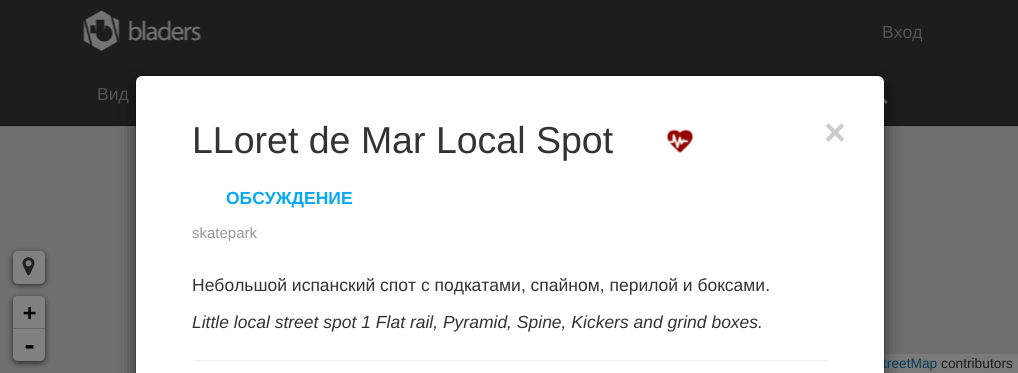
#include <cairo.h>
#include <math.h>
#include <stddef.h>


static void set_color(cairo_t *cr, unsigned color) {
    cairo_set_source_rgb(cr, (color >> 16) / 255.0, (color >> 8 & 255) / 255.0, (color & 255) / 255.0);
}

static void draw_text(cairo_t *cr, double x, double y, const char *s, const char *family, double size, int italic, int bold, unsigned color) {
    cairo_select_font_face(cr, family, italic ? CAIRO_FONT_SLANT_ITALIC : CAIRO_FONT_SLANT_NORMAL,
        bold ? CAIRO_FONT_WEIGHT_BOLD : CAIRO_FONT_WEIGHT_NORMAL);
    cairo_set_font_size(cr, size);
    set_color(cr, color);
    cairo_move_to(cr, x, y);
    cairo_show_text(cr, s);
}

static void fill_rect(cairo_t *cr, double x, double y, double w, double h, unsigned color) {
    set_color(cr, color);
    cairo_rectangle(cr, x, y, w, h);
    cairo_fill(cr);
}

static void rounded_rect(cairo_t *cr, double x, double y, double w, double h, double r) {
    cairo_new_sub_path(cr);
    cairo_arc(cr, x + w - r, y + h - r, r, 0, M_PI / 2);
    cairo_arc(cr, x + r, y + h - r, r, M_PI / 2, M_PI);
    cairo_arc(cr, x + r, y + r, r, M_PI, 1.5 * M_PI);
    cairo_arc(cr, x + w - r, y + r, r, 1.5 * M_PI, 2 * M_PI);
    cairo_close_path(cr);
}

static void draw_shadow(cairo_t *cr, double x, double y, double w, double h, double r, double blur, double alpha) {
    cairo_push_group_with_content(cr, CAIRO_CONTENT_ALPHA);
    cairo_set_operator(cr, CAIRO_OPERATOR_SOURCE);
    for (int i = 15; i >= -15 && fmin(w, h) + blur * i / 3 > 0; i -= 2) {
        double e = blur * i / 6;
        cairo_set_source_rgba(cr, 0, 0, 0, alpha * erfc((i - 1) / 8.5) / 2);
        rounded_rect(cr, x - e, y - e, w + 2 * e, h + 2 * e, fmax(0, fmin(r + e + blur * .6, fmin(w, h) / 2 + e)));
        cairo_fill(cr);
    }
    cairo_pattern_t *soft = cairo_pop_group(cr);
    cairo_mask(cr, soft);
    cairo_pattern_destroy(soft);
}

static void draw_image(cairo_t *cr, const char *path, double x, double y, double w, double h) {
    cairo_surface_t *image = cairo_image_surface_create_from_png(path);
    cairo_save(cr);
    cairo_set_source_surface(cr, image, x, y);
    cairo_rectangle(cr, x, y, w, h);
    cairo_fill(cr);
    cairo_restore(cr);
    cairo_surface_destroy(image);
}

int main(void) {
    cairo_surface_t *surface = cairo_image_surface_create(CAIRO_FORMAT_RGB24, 1018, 373);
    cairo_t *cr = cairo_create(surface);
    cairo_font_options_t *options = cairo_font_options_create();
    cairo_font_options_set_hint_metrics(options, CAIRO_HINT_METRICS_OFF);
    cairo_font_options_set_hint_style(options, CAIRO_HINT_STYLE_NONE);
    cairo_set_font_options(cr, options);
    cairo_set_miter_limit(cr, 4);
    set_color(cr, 0x6F6F6F);
    cairo_paint(cr);
    fill_rect(cr, 0, 0, 1018, 125, 0x1D1D1D);
    fill_rect(cr, 0, 125, 1018, 1, 0x131313);
    draw_image(cr, "assets/img1.png", 83, 10, 118, 41);
    draw_text(cr, 882, 38, "Вход", "Liberation Sans", 17.5, 0, 0, 0x535353);
    draw_text(cr, 97, 100, "Вид", "Liberation Sans", 17.5, 0, 0, 0x535353);
    draw_image(cr, "assets/img2.png", 884, 91, 4, 13);
    fill_rect(cr, 884, 354, 134, 19, 0x7B7B7B);
    set_color(cr, 0x000000);
    draw_shadow(cr, 135, 81, 750, 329, 8, 9.5, 0.5);
    draw_text(cr, 883, 368, "treetMap", "Liberation Sans", 13.75, 0, 0, 0x003C54);
    set_color(cr, 0xFFFFFF);
    cairo_new_path(cr);
    cairo_move_to(cr, 142, 76);
    cairo_line_to(cr, 878, 76);
    cairo_curve_to(cr, 881.5, 76, 884, 78.5, 884, 82);
    cairo_line_to(cr, 884, 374);
    cairo_line_to(cr, 136, 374);
    cairo_line_to(cr, 136, 82);
    cairo_curve_to(cr, 136, 78.5, 138.5, 76, 142, 76);
    cairo_close_path(cr);
    cairo_fill(cr);
    rounded_rect(cr, 135.5, 75.5, 749, 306, 7.5);
    cairo_set_source_rgba(cr, 0, 0, 0, 0.2);
    cairo_set_line_width(cr, 1);
    cairo_stroke(cr);
    draw_text(cr, 192, 153, "LLoret de Mar Local Spot", "Liberation Sans", 37.5, 0, 0, 0x333333);
    draw_image(cr, "assets/img3.png", 667, 129, 26, 24);
    draw_text(cr, 226, 204, "ОБСУЖДЕНИЕ", "Liberation Sans", 17.5, 0, 1, 0x03A9F4);
    draw_text(cr, 192, 238, "skatepark", "Liberation Sans", 15, 0, 0, 0x999999);
    draw_text(cr, 824, 145, "×", "Liberation Sans", 37.5, 0, 1, 0xCCCCCC);
    draw_text(cr, 192, 291, "Небольшой испанский спот с подкатами, спайном, перилой и боксами.", "Liberation Sans", 17.5, 0, 0, 0x333333);
    draw_text(cr, 192, 328, "Little local street spot 1 Flat rail, Pyramid, Spine, Kickers and grind boxes.", "Liberation Sans", 17.5, 1, 0, 0x333333);
    fill_rect(cr, 193, 360, 635, 1, 0xEEEEEE);
    set_color(cr, 0x000000);
    draw_shadow(cr, 13, 253, 32, 32, 5, 3, 0.65);
    set_color(cr, 0x808080);
    rounded_rect(cr, 13, 251, 32, 33, 5);
    cairo_fill(cr);
    draw_image(cr, "assets/img4.png", 22, 257, 13, 19);
    set_color(cr, 0x000000);
    draw_shadow(cr, 13, 298, 32, 65, 5, 3, 0.65);
    set_color(cr, 0x808080);
    cairo_new_path(cr);
    cairo_move_to(cr, 18, 296);
    cairo_line_to(cr, 40, 296);
    cairo_curve_to(cr, 43, 296, 45, 298, 45, 301);
    cairo_line_to(cr, 45, 329);
    cairo_line_to(cr, 13, 329);
    cairo_line_to(cr, 13, 301);
    cairo_curve_to(cr, 13, 298, 15, 296, 18, 296);
    cairo_close_path(cr);
    cairo_fill(cr);
    fill_rect(cr, 13, 328, 32, 1, 0x666666);
    draw_text(cr, 23, 320, "+", "DejaVu Sans Mono", 22, 0, 1, 0x000000);
    set_color(cr, 0x808080);
    cairo_new_path(cr);
    cairo_move_to(cr, 13, 329);
    cairo_line_to(cr, 45, 329);
    cairo_line_to(cr, 45, 356);
    cairo_curve_to(cr, 45, 359, 43, 361, 40, 361);
    cairo_line_to(cr, 18, 361);
    cairo_curve_to(cr, 15, 361, 13, 359, 13, 356);
    cairo_close_path(cr);
    cairo_fill(cr);
    draw_text(cr, 22, 354, "-", "DejaVu Sans Mono", 25, 0, 1, 0x000000);
    draw_text(cr, 941, 368, "contributors", "Liberation Sans", 13.75, 0, 0, 0x1A1A1A);
    cairo_surface_write_to_png(surface, "output.png");
    cairo_font_options_destroy(options);
    cairo_destroy(cr);
    cairo_surface_destroy(surface);
    return 0;
}
